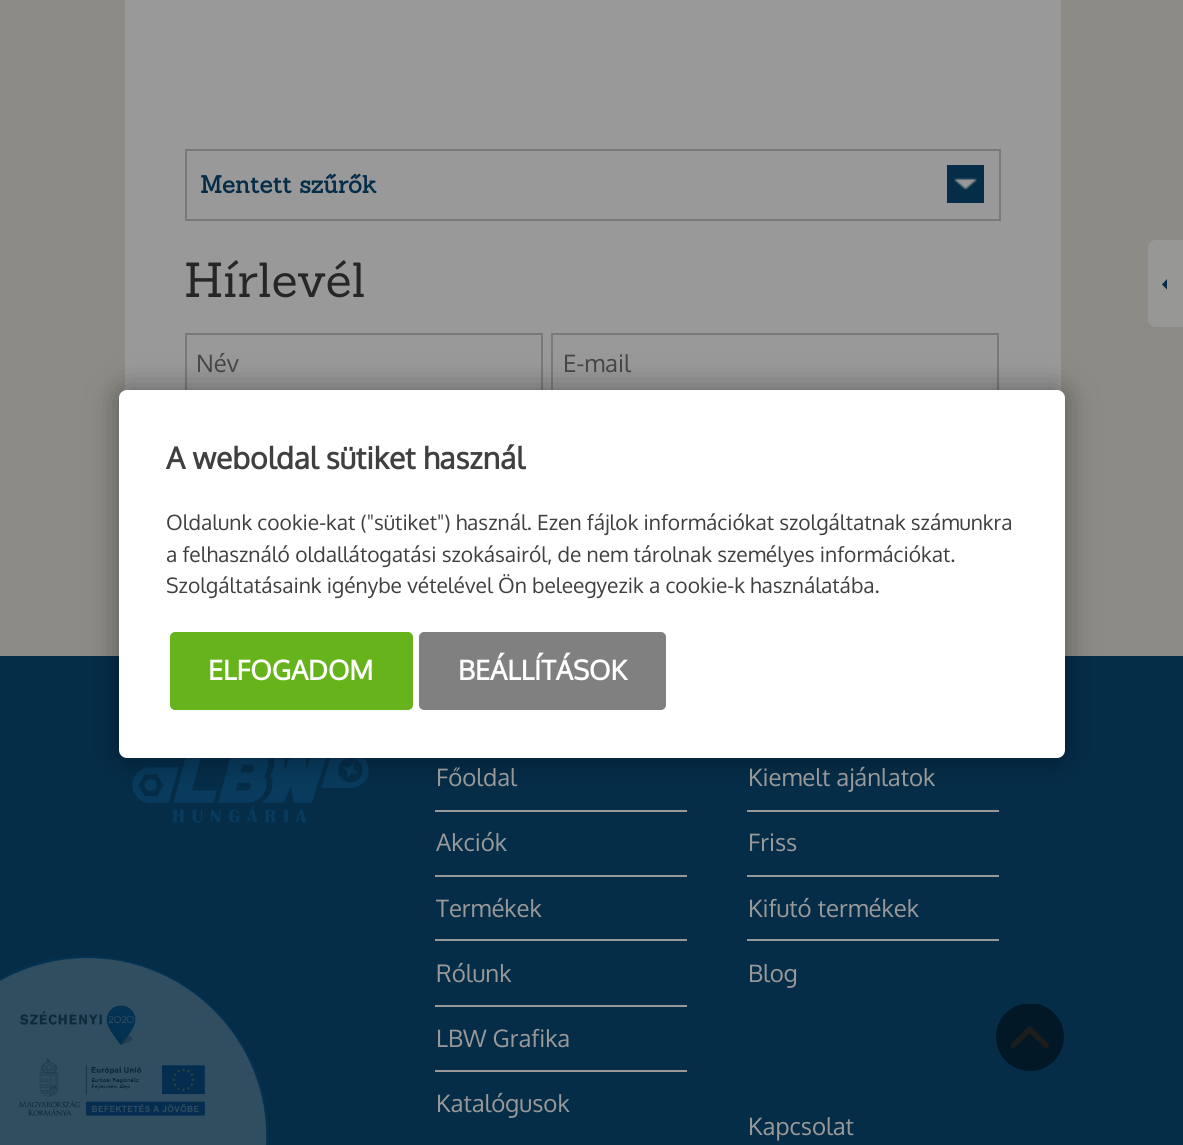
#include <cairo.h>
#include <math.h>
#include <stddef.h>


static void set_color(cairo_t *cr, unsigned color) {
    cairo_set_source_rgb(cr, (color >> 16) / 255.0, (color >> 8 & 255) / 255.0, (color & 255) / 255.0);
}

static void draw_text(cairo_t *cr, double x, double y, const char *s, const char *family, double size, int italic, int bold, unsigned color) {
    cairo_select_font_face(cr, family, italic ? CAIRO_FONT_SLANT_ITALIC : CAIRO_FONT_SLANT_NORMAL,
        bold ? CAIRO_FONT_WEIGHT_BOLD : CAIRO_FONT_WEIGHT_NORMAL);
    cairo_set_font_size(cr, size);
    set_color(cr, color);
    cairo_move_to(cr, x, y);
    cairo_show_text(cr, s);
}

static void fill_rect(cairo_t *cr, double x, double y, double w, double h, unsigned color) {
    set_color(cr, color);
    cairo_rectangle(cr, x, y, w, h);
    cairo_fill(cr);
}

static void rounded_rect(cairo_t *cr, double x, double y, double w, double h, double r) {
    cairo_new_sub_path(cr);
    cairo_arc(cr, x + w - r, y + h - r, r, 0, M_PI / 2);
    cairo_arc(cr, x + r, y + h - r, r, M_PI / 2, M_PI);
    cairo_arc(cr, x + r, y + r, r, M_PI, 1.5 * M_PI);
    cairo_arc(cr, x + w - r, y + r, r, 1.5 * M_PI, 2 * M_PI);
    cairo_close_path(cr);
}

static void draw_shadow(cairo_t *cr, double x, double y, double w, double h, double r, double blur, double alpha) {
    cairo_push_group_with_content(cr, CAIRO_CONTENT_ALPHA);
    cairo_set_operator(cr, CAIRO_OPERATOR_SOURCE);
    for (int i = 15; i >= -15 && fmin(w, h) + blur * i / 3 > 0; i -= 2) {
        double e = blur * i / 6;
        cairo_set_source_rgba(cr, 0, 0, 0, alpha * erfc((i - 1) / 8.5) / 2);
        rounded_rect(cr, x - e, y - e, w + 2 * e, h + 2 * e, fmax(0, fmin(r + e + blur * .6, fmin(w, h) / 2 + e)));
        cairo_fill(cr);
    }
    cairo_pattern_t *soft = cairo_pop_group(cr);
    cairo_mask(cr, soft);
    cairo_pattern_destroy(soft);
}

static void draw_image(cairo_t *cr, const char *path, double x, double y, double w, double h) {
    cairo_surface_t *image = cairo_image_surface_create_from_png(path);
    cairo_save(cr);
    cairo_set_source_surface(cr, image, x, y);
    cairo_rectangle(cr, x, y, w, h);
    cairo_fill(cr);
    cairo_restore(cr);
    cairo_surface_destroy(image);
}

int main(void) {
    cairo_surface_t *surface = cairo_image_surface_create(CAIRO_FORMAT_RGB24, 1183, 1145);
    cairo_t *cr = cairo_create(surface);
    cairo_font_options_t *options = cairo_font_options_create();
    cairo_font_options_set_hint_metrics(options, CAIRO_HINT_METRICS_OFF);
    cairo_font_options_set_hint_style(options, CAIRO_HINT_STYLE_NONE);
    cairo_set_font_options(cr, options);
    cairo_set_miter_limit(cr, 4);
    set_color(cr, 0x8D8B85);
    cairo_paint(cr);
    fill_rect(cr, 125, 0, 936, 392, 0x999999);
    cairo_rectangle(cr, 186, 150, 814, 70);
    set_color(cr, 0x797979);
    cairo_stroke(cr);
    draw_text(cr, 200, 193, "Mentett szűrők", "Sanchez", 24, 0, 1, 0x052D48);
    fill_rect(cr, 947, 165, 37, 38, 0x052D48);
    draw_image(cr, "assets/img1.png", 953, 177, 24, 14);
    draw_text(cr, 184, 297, "Hírlevél", "Sanchez", 48, 0, 0, 0x262626);
    cairo_rectangle(cr, 186, 334, 356, 61);
    set_color(cr, 0x7A7A7A);
    cairo_stroke(cr);
    draw_text(cr, 196, 372, "Név", "Oxygen", 24, 0, 0, 0x464646);
    cairo_rectangle(cr, 552, 334, 446, 61);
    set_color(cr, 0x7A7A7A);
    cairo_stroke(cr);
    draw_text(cr, 563, 372, "E-mail", "Oxygen", 24, 0, 0, 0x464646);
    fill_rect(cr, 0, 656, 1183, 489, 0x052D48);
    draw_image(cr, "assets/img2.png", 0, 956, 269, 189);
    set_color(cr, 0x979796);
    cairo_new_path(cr);
    cairo_move_to(cr, 1156, 240);
    cairo_line_to(cr, 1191, 240);
    cairo_line_to(cr, 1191, 327);
    cairo_line_to(cr, 1156, 327);
    cairo_curve_to(cr, 1151.5, 327, 1148, 323.5, 1148, 319);
    cairo_line_to(cr, 1148, 248);
    cairo_curve_to(cr, 1148, 243.5, 1151.5, 240, 1156, 240);
    cairo_close_path(cr);
    cairo_fill(cr);
    set_color(cr, 0x052D48);
    cairo_new_path(cr);
    cairo_move_to(cr, 1167, 279);
    cairo_line_to(cr, 1167, 289.5);
    cairo_line_to(cr, 1162, 284.5);
    cairo_close_path(cr);
    cairo_fill(cr);
    draw_image(cr, "assets/img3.png", 132, 758, 237, 65);
    set_color(cr, 0x000000);
    draw_shadow(cr, 119, 390, 946, 368, 8, 15, 0.4);
    set_color(cr, 0xFFFFFF);
    rounded_rect(cr, 119, 390, 946, 368, 8);
    cairo_fill(cr);
    draw_text(cr, 166, 469, "A weboldal sütiket használ", "Oxygen", 30, 0, 1, 0x404040);
    draw_text(cr, 166, 530, "Oldalunk cookie-kat (\"sütiket\") használ. Ezen fájlok információkat szolgáltatnak számunkra", "Oxygen", 21, 0, 0, 0x404040);
    draw_text(cr, 166, 562, "a felhasználó oldallátogatási szokásairól, de nem tárolnak személyes információkat.", "Oxygen", 21, 0, 0, 0x404040);
    draw_text(cr, 166, 593, "Szolgáltatásaink igénybe vételével Ön beleegyezik a cookie-k használatába.", "Oxygen", 21, 0, 0, 0x404040);
    set_color(cr, 0x66B31C);
    rounded_rect(cr, 171, 633, 241, 76, 4);
    cairo_fill_preserve(cr);
    cairo_stroke(cr);
    draw_text(cr, 208, 680, "ELFOGADOM", "Oxygen", 27, 0, 1, 0xFFFFFF);
    set_color(cr, 0x808080);
    rounded_rect(cr, 420, 633, 245, 76, 4);
    cairo_fill_preserve(cr);
    cairo_stroke(cr);
    draw_text(cr, 458, 680, "BEÁLLÍTÁSOK", "Oxygen", 27, 0, 1, 0xFFFFFF);
    fill_rect(cr, 435, 810, 252, 2, 0x999999);
    draw_text(cr, 436, 786, "Főoldal", "Oxygen", 24, 0, 0, 0x999999);
    fill_rect(cr, 435, 875, 252, 2, 0x999999);
    draw_text(cr, 436, 851, "Akciók", "Oxygen", 24, 0, 0, 0x999999);
    fill_rect(cr, 435, 939, 252, 2, 0x999999);
    draw_text(cr, 436, 917, "Termékek", "Oxygen", 24, 0, 0, 0x999999);
    fill_rect(cr, 435, 1005, 252, 2, 0x999999);
    draw_text(cr, 436, 982, "Rólunk", "Oxygen", 24, 0, 0, 0x999999);
    fill_rect(cr, 435, 1070, 252, 2, 0x999999);
    draw_text(cr, 436, 1047, "LBW Grafika", "Oxygen", 24, 0, 0, 0x999999);
    draw_text(cr, 436, 1112, "Katalógusok", "Oxygen", 24, 0, 0, 0x999999);
    fill_rect(cr, 747, 810, 252, 2, 0x999999);
    draw_text(cr, 748, 786, "Kiemelt ajánlatok", "Oxygen", 24, 0, 0, 0x999999);
    fill_rect(cr, 747, 875, 252, 2, 0x999999);
    draw_text(cr, 748, 851, "Friss", "Oxygen", 24, 0, 0, 0x999999);
    fill_rect(cr, 747, 939, 252, 2, 0x999999);
    draw_text(cr, 748, 917, "Kifutó termékek", "Oxygen", 24, 0, 0, 0x999999);
    draw_text(cr, 748, 982, "Blog", "Oxygen", 24, 0, 0, 0x999999);
    draw_text(cr, 748, 1135, "Kapcsolat", "Oxygen", 24, 0, 0, 0x999999);
    cairo_save(cr);
    cairo_rectangle(cr, 996, 1004, 68, 67);
    cairo_clip(cr);
    set_color(cr, 0x021826);
    cairo_arc(cr, 1030, 1037, 34, 0, 2 * M_PI);
    cairo_fill(cr);
    cairo_restore(cr);
    set_color(cr, 0x1D1D1C);
    cairo_new_path(cr);
    cairo_move_to(cr, 1030, 1026.5);
    cairo_curve_to(cr, 1029, 1026.5, 1028.5, 1026.5, 1028, 1027);
    cairo_line_to(cr, 1011.5, 1043.5);
    cairo_curve_to(cr, 1010.5, 1044.5, 1010.5, 1046.5, 1011.5, 1047.5);
    cairo_curve_to(cr, 1012.5, 1048.5, 1014, 1048.5, 1015, 1047.5);
    cairo_line_to(cr, 1029.5, 1033);
    cairo_line_to(cr, 1044.5, 1047.5);
    cairo_curve_to(cr, 1045.5, 1048.5, 1047, 1048.5, 1048, 1047.5);
    cairo_curve_to(cr, 1049, 1046.5, 1049, 1044.5, 1048, 1043.5);
    cairo_line_to(cr, 1031.5, 1027);
    cairo_curve_to(cr, 1031, 1026.5, 1030.5, 1026.5, 1030, 1026.5);
    cairo_close_path(cr);
    cairo_fill(cr);
    cairo_surface_write_to_png(surface, "output.png");
    cairo_font_options_destroy(options);
    cairo_destroy(cr);
    cairo_surface_destroy(surface);
    return 0;
}
